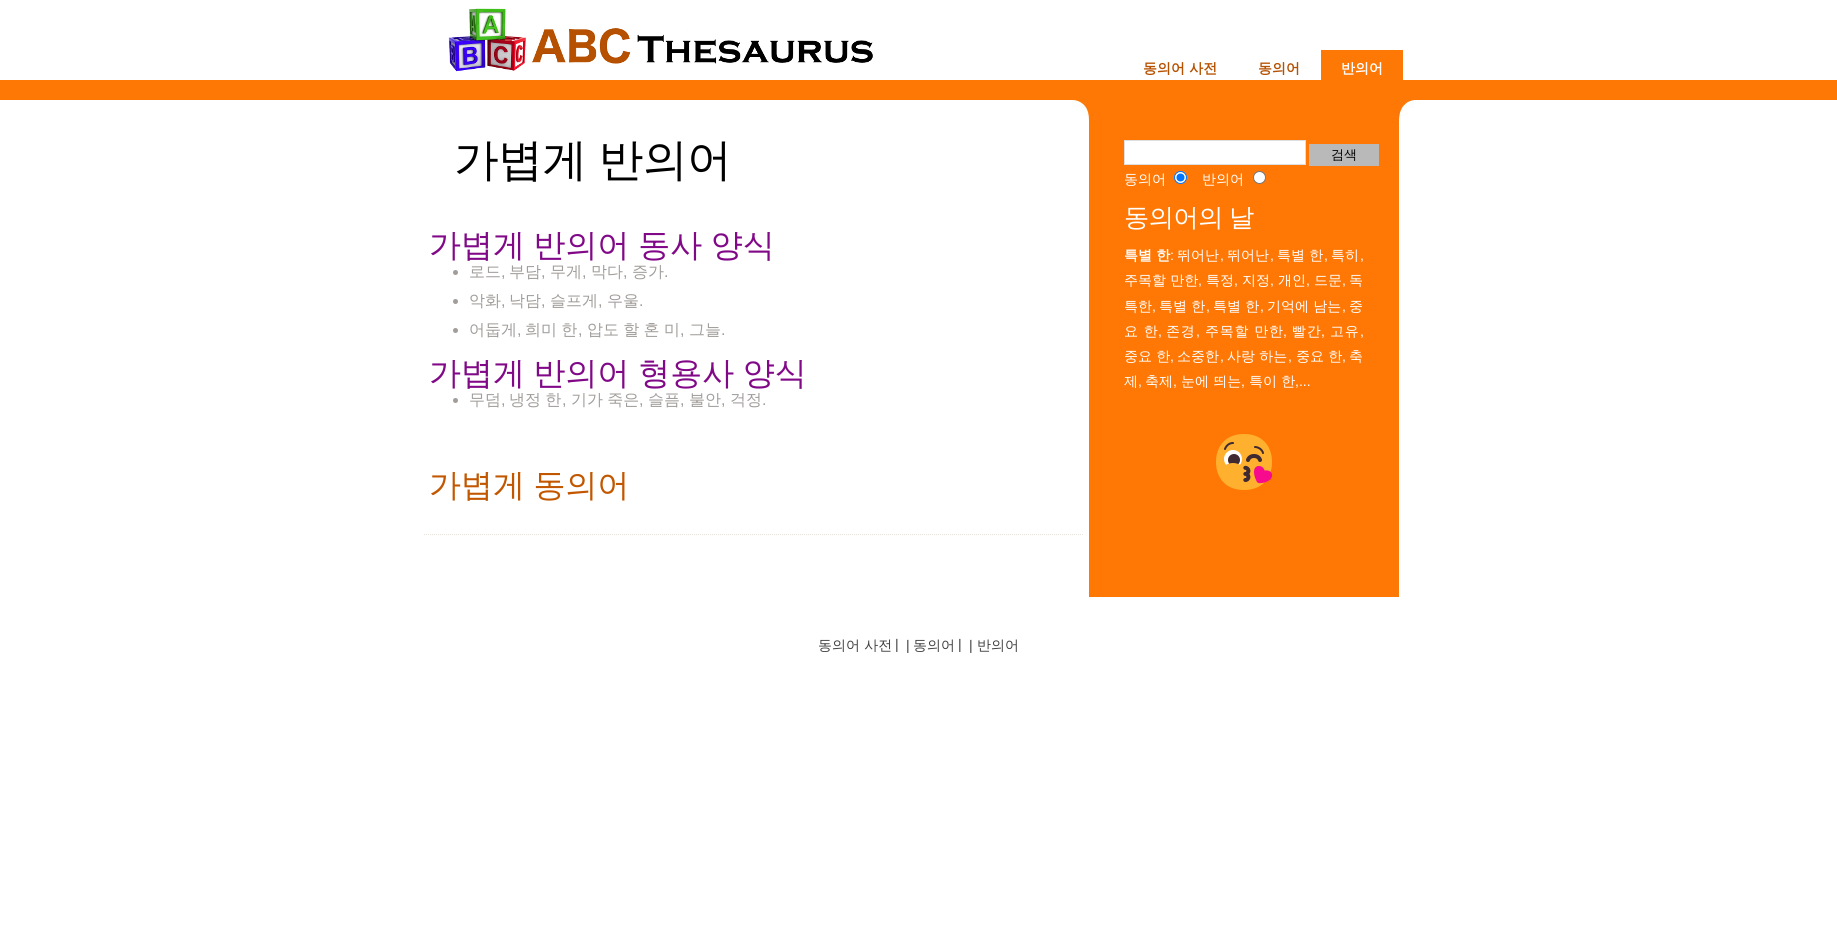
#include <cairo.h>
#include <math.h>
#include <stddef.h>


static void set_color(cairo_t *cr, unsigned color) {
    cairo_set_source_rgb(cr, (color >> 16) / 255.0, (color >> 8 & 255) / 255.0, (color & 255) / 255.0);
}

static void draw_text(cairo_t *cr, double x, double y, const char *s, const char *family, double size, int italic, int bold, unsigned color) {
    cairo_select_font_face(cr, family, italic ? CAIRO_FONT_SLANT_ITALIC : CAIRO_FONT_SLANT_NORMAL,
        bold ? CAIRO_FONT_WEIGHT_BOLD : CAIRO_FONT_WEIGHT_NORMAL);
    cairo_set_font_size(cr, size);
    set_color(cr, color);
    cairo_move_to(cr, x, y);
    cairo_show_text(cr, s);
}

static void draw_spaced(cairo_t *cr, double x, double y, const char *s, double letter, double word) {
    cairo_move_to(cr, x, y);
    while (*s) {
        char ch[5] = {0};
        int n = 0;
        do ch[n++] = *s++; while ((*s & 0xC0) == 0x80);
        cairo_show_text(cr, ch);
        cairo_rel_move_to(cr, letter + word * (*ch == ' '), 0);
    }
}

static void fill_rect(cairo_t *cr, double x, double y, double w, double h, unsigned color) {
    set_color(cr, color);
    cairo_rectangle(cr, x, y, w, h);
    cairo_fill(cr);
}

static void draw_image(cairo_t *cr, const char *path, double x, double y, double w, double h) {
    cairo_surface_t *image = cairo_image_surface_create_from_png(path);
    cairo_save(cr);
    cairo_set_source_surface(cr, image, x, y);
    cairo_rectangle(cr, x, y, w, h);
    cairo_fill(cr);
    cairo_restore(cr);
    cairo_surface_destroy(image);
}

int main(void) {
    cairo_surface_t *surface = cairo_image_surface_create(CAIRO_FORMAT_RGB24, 1837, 949);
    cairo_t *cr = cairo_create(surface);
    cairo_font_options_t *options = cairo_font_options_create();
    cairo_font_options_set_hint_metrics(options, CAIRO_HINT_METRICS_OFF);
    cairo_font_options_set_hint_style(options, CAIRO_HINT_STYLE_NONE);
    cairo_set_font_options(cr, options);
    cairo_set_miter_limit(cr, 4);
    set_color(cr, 0xFFFFFF);
    cairo_paint(cr);
    fill_rect(cr, 0, 80, 1837, 20, 0xFE7805);
    draw_image(cr, "assets/img1.png", 448, 8, 425, 64);
    draw_text(cr, 1143, 73, "동의어 사전", "WenQuanYi Zen Hei", 14, 0, 1, 0xB55100);
    draw_text(cr, 1258, 73, "동의어", "WenQuanYi Zen Hei", 14, 0, 1, 0xB55100);
    fill_rect(cr, 1321, 50, 82, 30, 0xFE7805);
    draw_text(cr, 1341, 73, "반의어", "WenQuanYi Zen Hei", 14, 0, 1, 0xFFFFFF);
    draw_image(cr, "assets/img2.png", 1089, 124, 310, 473);
    draw_image(cr, "assets/img3.png", 1072, 100, 342, 24);
    cairo_new_path(cr);
    cairo_move_to(cr, 424, 534.5);
    cairo_line_to(cr, 1084, 534.5);
    set_color(cr, 0xE7E2DC);
    cairo_set_line_width(cr, 1);
    cairo_set_dash(cr, (double[]){1, 1}, 2, 0);
    cairo_stroke(cr);
    cairo_select_font_face(cr, "WenQuanYi Zen Hei Medium", CAIRO_FONT_SLANT_NORMAL, CAIRO_FONT_WEIGHT_NORMAL);
    cairo_set_font_size(cr, 44.75);
    set_color(cr, 0x000000);
    draw_spaced(cr, 454, 175, "가볍게 반의어", -0.5, -1);
    cairo_set_font_size(cr, 32);
    set_color(cr, 0x810988);
    draw_spaced(cr, 429, 256, "가볍게 반의어 동사 양식", 0, -1);
    set_color(cr, 0xA19D9A);
    cairo_new_path(cr);
    cairo_arc(cr, 455.5, 272.5, 2.5, 0, 2 * M_PI);
    cairo_fill(cr);
    draw_text(cr, 469, 277, "로드", "WenQuanYi Zen Hei Medium", 16, 0, 0, 0xA19D9A);
    draw_text(cr, 509, 277, "부담", "WenQuanYi Zen Hei Medium", 16, 0, 0, 0xA19D9A);
    draw_text(cr, 550, 277, "무게", "WenQuanYi Zen Hei Medium", 16, 0, 0, 0xA19D9A);
    draw_text(cr, 591, 277, "막다", "WenQuanYi Zen Hei Medium", 16, 0, 0, 0xA19D9A);
    draw_text(cr, 632, 277, "증가", "WenQuanYi Zen Hei Medium", 16, 0, 0, 0xA19D9A);
    draw_text(cr, 501, 277, ",", "Liberation Sans", 16, 0, 0, 0xA19D9A);
    draw_text(cr, 541, 277, ",", "Liberation Sans", 16, 0, 0, 0xA19D9A);
    draw_text(cr, 582, 277, ",", "Liberation Sans", 16, 0, 0, 0xA19D9A);
    draw_text(cr, 623, 277, ",", "Liberation Sans", 16, 0, 0, 0xA19D9A);
    draw_text(cr, 664, 277, ".", "Liberation Sans", 16, 0, 0, 0xA19D9A);
    cairo_new_path(cr);
    cairo_arc(cr, 455.5, 301.5, 2.5, 0, 2 * M_PI);
    cairo_fill(cr);
    draw_text(cr, 469, 306, "악화", "WenQuanYi Zen Hei Medium", 16, 0, 0, 0xA19D9A);
    draw_text(cr, 509, 306, "낙담", "WenQuanYi Zen Hei Medium", 16, 0, 0, 0xA19D9A);
    draw_text(cr, 550, 306, "슬프게", "WenQuanYi Zen Hei Medium", 16, 0, 0, 0xA19D9A);
    draw_text(cr, 607, 306, "우울", "WenQuanYi Zen Hei Medium", 16, 0, 0, 0xA19D9A);
    draw_text(cr, 501, 306, ",", "Liberation Sans", 16, 0, 0, 0xA19D9A);
    draw_text(cr, 541, 306, ",", "Liberation Sans", 16, 0, 0, 0xA19D9A);
    draw_text(cr, 598, 306, ",", "Liberation Sans", 16, 0, 0, 0xA19D9A);
    draw_text(cr, 639, 306, ".", "Liberation Sans", 16, 0, 0, 0xA19D9A);
    cairo_new_path(cr);
    cairo_arc(cr, 455.5, 330.5, 2.5, 0, 2 * M_PI);
    cairo_fill(cr);
    draw_text(cr, 469, 335, "어둡게", "WenQuanYi Zen Hei Medium", 16, 0, 0, 0xA19D9A);
    draw_spaced(cr, 525, 335, "희미 한", 0, -0.5);
    draw_spaced(cr, 587, 335, "압도 할 혼 미", 0, -0.5);
    draw_text(cr, 689, 335, "그늘", "WenQuanYi Zen Hei Medium", 16, 0, 0, 0xA19D9A);
    draw_text(cr, 517, 335, ",", "Liberation Sans", 16, 0, 0, 0xA19D9A);
    draw_text(cr, 578, 335, ",", "Liberation Sans", 16, 0, 0, 0xA19D9A);
    draw_text(cr, 680, 335, ",", "Liberation Sans", 16, 0, 0, 0xA19D9A);
    draw_text(cr, 721, 335, ".", "Liberation Sans", 16, 0, 0, 0xA19D9A);
    cairo_select_font_face(cr, "WenQuanYi Zen Hei Medium", CAIRO_FONT_SLANT_NORMAL, CAIRO_FONT_WEIGHT_NORMAL);
    cairo_set_font_size(cr, 32);
    set_color(cr, 0x810988);
    draw_spaced(cr, 429, 384, "가볍게 반의어 형용사 양식", 0, -1);
    set_color(cr, 0xA19D9A);
    cairo_new_path(cr);
    cairo_arc(cr, 455.5, 400.5, 2.5, 0, 2 * M_PI);
    cairo_fill(cr);
    draw_text(cr, 469, 405, "무덤", "WenQuanYi Zen Hei Medium", 16, 0, 0, 0xA19D9A);
    draw_spaced(cr, 509, 405, "냉정 한", 0, -0.5);
    draw_spaced(cr, 571, 405, "기가 죽은", 0, -0.5);
    draw_text(cr, 648, 405, "슬픔", "WenQuanYi Zen Hei Medium", 16, 0, 0, 0xA19D9A);
    draw_text(cr, 689, 405, "불안", "WenQuanYi Zen Hei Medium", 16, 0, 0, 0xA19D9A);
    draw_text(cr, 730, 405, "걱정", "WenQuanYi Zen Hei Medium", 16, 0, 0, 0xA19D9A);
    draw_text(cr, 501, 405, ",", "Liberation Sans", 16, 0, 0, 0xA19D9A);
    draw_text(cr, 562, 405, ",", "Liberation Sans", 16, 0, 0, 0xA19D9A);
    draw_text(cr, 639, 405, ",", "Liberation Sans", 16, 0, 0, 0xA19D9A);
    draw_text(cr, 680, 405, ",", "Liberation Sans", 16, 0, 0, 0xA19D9A);
    draw_text(cr, 721, 405, ",", "Liberation Sans", 16, 0, 0, 0xA19D9A);
    draw_text(cr, 762, 405, ".", "Liberation Sans", 16, 0, 0, 0xA19D9A);
    cairo_select_font_face(cr, "WenQuanYi Zen Hei Medium", CAIRO_FONT_SLANT_NORMAL, CAIRO_FONT_WEIGHT_NORMAL);
    cairo_set_font_size(cr, 32);
    set_color(cr, 0xC25700);
    draw_spaced(cr, 429, 496, "가볍게 동의어", 0, -1);
    set_color(cr, 0xFFFFFF);
    cairo_rectangle(cr, 1124.5, 140.5, 181, 24);
    cairo_fill_preserve(cr);
    set_color(cr, 0xDEDEDE);
    cairo_set_dash(cr, NULL, 0, 0);
    cairo_stroke(cr);
    fill_rect(cr, 1309, 144, 70, 22, 0xB9B9B9);
    draw_text(cr, 1331, 159, "검색", "WenQuanYi Zen Hei Medium", 13, 0, 0, 0x000000);
    draw_text(cr, 1124, 184, "동의어", "WenQuanYi Zen Hei Medium", 14, 0, 0, 0xFFFFFF);
    cairo_new_path(cr);
    cairo_arc(cr, 1180.5, 177.5, 6, 0, 2 * M_PI);
    cairo_fill_preserve(cr);
    set_color(cr, 0x0075FF);
    cairo_stroke(cr);
    cairo_arc(cr, 1180.5, 177.5, 4, 0, 2 * M_PI);
    cairo_fill(cr);
    draw_text(cr, 1202, 184, "반의어", "WenQuanYi Zen Hei Medium", 14, 0, 0, 0xFFFFFF);
    cairo_new_path(cr);
    cairo_arc(cr, 1259.5, 177.5, 6, 0, 2 * M_PI);
    cairo_fill_preserve(cr);
    set_color(cr, 0x767676);
    cairo_stroke(cr);
    cairo_set_font_size(cr, 25.25);
    set_color(cr, 0xFFFFFF);
    draw_spaced(cr, 1124, 226, "동의어의 날", -0.5, -1);
    draw_text(cr, 1124, 260, "특별 한", "WenQuanYi Zen Hei", 14, 0, 1, 0xFFFFFF);
    draw_text(cr, 1170, 260, ":", "Liberation Sans", 14, 0, 0, 0xFFFFFF);
    draw_text(cr, 1177, 260, "뛰어난", "WenQuanYi Zen Hei Medium", 14, 0, 0, 0xFFFFFF);
    draw_text(cr, 1220, 260, ",", "Liberation Sans", 14, 0, 0, 0xFFFFFF);
    draw_text(cr, 1227, 260, "뛰어난", "WenQuanYi Zen Hei Medium", 14, 0, 0, 0xFFFFFF);
    draw_text(cr, 1270, 260, ",", "Liberation Sans", 14, 0, 0, 0xFFFFFF);
    draw_text(cr, 1277, 260, "특별 한", "WenQuanYi Zen Hei Medium", 14, 0, 0, 0xFFFFFF);
    draw_text(cr, 1324, 260, ",", "Liberation Sans", 14, 0, 0, 0xFFFFFF);
    draw_text(cr, 1331, 260, "특히", "WenQuanYi Zen Hei Medium", 14, 0, 0, 0xFFFFFF);
    draw_text(cr, 1360, 260, ",", "Liberation Sans", 14, 0, 0, 0xFFFFFF);
    draw_text(cr, 1124, 285, "주목할 만한", "WenQuanYi Zen Hei Medium", 14, 0, 0, 0xFFFFFF);
    draw_text(cr, 1198, 285, ",", "Liberation Sans", 14, 0, 0, 0xFFFFFF);
    draw_text(cr, 1206, 285, "특정", "WenQuanYi Zen Hei Medium", 14, 0, 0, 0xFFFFFF);
    draw_text(cr, 1234, 285, ",", "Liberation Sans", 14, 0, 0, 0xFFFFFF);
    draw_text(cr, 1242, 285, "지정", "WenQuanYi Zen Hei Medium", 14, 0, 0, 0xFFFFFF);
    draw_text(cr, 1270, 285, ",", "Liberation Sans", 14, 0, 0, 0xFFFFFF);
    draw_text(cr, 1278, 285, "개인", "WenQuanYi Zen Hei Medium", 14, 0, 0, 0xFFFFFF);
    draw_text(cr, 1306, 285, ",", "Liberation Sans", 14, 0, 0, 0xFFFFFF);
    draw_text(cr, 1314, 285, "드문", "WenQuanYi Zen Hei Medium", 14, 0, 0, 0xFFFFFF);
    draw_text(cr, 1342, 285, ",", "Liberation Sans", 14, 0, 0, 0xFFFFFF);
    draw_text(cr, 1349, 285, "독", "WenQuanYi Zen Hei Medium", 14, 0, 0, 0xFFFFFF);
    draw_text(cr, 1124, 311, "특한", "WenQuanYi Zen Hei Medium", 14, 0, 0, 0xFFFFFF);
    draw_text(cr, 1152, 311, ",", "Liberation Sans", 14, 0, 0, 0xFFFFFF);
    draw_text(cr, 1159, 311, "특별 한", "WenQuanYi Zen Hei Medium", 14, 0, 0, 0xFFFFFF);
    draw_text(cr, 1206, 311, ",", "Liberation Sans", 14, 0, 0, 0xFFFFFF);
    draw_text(cr, 1213, 311, "특별 한", "WenQuanYi Zen Hei Medium", 14, 0, 0, 0xFFFFFF);
    draw_text(cr, 1260, 311, ",", "Liberation Sans", 14, 0, 0, 0xFFFFFF);
    draw_text(cr, 1267, 311, "기억에 남는", "WenQuanYi Zen Hei Medium", 14, 0, 0, 0xFFFFFF);
    draw_text(cr, 1342, 311, ",", "Liberation Sans", 14, 0, 0, 0xFFFFFF);
    draw_text(cr, 1349, 311, "중", "WenQuanYi Zen Hei Medium", 14, 0, 0, 0xFFFFFF);
    draw_spaced(cr, 1124, 336, "요 한", 0.75, 0);
    cairo_select_font_face(cr, "Liberation Sans", CAIRO_FONT_SLANT_NORMAL, CAIRO_FONT_WEIGHT_NORMAL);
    draw_spaced(cr, 1158, 336, ",", 0.75, 0);
    cairo_select_font_face(cr, "WenQuanYi Zen Hei Medium", CAIRO_FONT_SLANT_NORMAL, CAIRO_FONT_WEIGHT_NORMAL);
    draw_spaced(cr, 1166, 336, "존경", 0.75, 0);
    cairo_select_font_face(cr, "Liberation Sans", CAIRO_FONT_SLANT_NORMAL, CAIRO_FONT_WEIGHT_NORMAL);
    draw_spaced(cr, 1196, 336, ",", 0.75, 0);
    cairo_select_font_face(cr, "WenQuanYi Zen Hei Medium", CAIRO_FONT_SLANT_NORMAL, CAIRO_FONT_WEIGHT_NORMAL);
    draw_spaced(cr, 1205, 336, "주목할 만한", 0.75, 0);
    cairo_select_font_face(cr, "Liberation Sans", CAIRO_FONT_SLANT_NORMAL, CAIRO_FONT_WEIGHT_NORMAL);
    draw_spaced(cr, 1283, 336, ",", 0.75, 0);
    cairo_select_font_face(cr, "WenQuanYi Zen Hei Medium", CAIRO_FONT_SLANT_NORMAL, CAIRO_FONT_WEIGHT_NORMAL);
    draw_spaced(cr, 1292, 336, "빨간", 0.75, 0);
    cairo_select_font_face(cr, "Liberation Sans", CAIRO_FONT_SLANT_NORMAL, CAIRO_FONT_WEIGHT_NORMAL);
    draw_spaced(cr, 1321, 336, ",", 0.75, 0);
    cairo_select_font_face(cr, "WenQuanYi Zen Hei Medium", CAIRO_FONT_SLANT_NORMAL, CAIRO_FONT_WEIGHT_NORMAL);
    draw_spaced(cr, 1330, 336, "고유", 0.75, 0);
    cairo_select_font_face(cr, "Liberation Sans", CAIRO_FONT_SLANT_NORMAL, CAIRO_FONT_WEIGHT_NORMAL);
    draw_spaced(cr, 1360, 336, ",", 0.75, 0);
    draw_text(cr, 1124, 361, "중요 한", "WenQuanYi Zen Hei Medium", 14, 0, 0, 0xFFFFFF);
    draw_text(cr, 1170, 361, ",", "Liberation Sans", 14, 0, 0, 0xFFFFFF);
    draw_text(cr, 1177, 361, "소중한", "WenQuanYi Zen Hei Medium", 14, 0, 0, 0xFFFFFF);
    draw_text(cr, 1220, 361, ",", "Liberation Sans", 14, 0, 0, 0xFFFFFF);
    draw_text(cr, 1227, 361, "사랑 하는", "WenQuanYi Zen Hei Medium", 14, 0, 0, 0xFFFFFF);
    draw_text(cr, 1288, 361, ",", "Liberation Sans", 14, 0, 0, 0xFFFFFF);
    draw_text(cr, 1296, 361, "중요 한", "WenQuanYi Zen Hei Medium", 14, 0, 0, 0xFFFFFF);
    draw_text(cr, 1342, 361, ",", "Liberation Sans", 14, 0, 0, 0xFFFFFF);
    draw_text(cr, 1349, 361, "축", "WenQuanYi Zen Hei Medium", 14, 0, 0, 0xFFFFFF);
    draw_text(cr, 1124, 386, "제", "WenQuanYi Zen Hei Medium", 14, 0, 0, 0xFFFFFF);
    draw_text(cr, 1138, 386, ",", "Liberation Sans", 14, 0, 0, 0xFFFFFF);
    draw_text(cr, 1145, 386, "축제", "WenQuanYi Zen Hei Medium", 14, 0, 0, 0xFFFFFF);
    draw_text(cr, 1173, 386, ",", "Liberation Sans", 14, 0, 0, 0xFFFFFF);
    draw_text(cr, 1181, 386, "눈에 띄는", "WenQuanYi Zen Hei Medium", 14, 0, 0, 0xFFFFFF);
    draw_text(cr, 1241, 386, ",", "Liberation Sans", 14, 0, 0, 0xFFFFFF);
    draw_text(cr, 1249, 386, "특이 한", "WenQuanYi Zen Hei Medium", 14, 0, 0, 0xFFFFFF);
    draw_text(cr, 1295, 386, ",...", "Liberation Sans", 14, 0, 0, 0xFFFFFF);
    draw_image(cr, "assets/img4.png", 1216, 434, 56, 56);
    draw_text(cr, 818, 650, "동의어 사전", "WenQuanYi Zen Hei Medium", 14, 0, 0, 0x404040);
    draw_text(cr, 895, 649, "|", "Liberation Sans", 14, 0, 0, 0x404040);
    draw_text(cr, 906, 650, "|", "Liberation Sans", 14, 0, 0, 0x404040);
    draw_text(cr, 913, 650, "동의어", "WenQuanYi Zen Hei Medium", 14, 0, 0, 0x404040);
    draw_text(cr, 958, 649, "|", "Liberation Sans", 14, 0, 0, 0x404040);
    draw_text(cr, 969, 650, "|", "Liberation Sans", 14, 0, 0, 0x404040);
    draw_text(cr, 977, 650, "반의어", "WenQuanYi Zen Hei Medium", 14, 0, 0, 0x404040);
    cairo_surface_write_to_png(surface, "output.png");
    cairo_font_options_destroy(options);
    cairo_destroy(cr);
    cairo_surface_destroy(surface);
    return 0;
}
